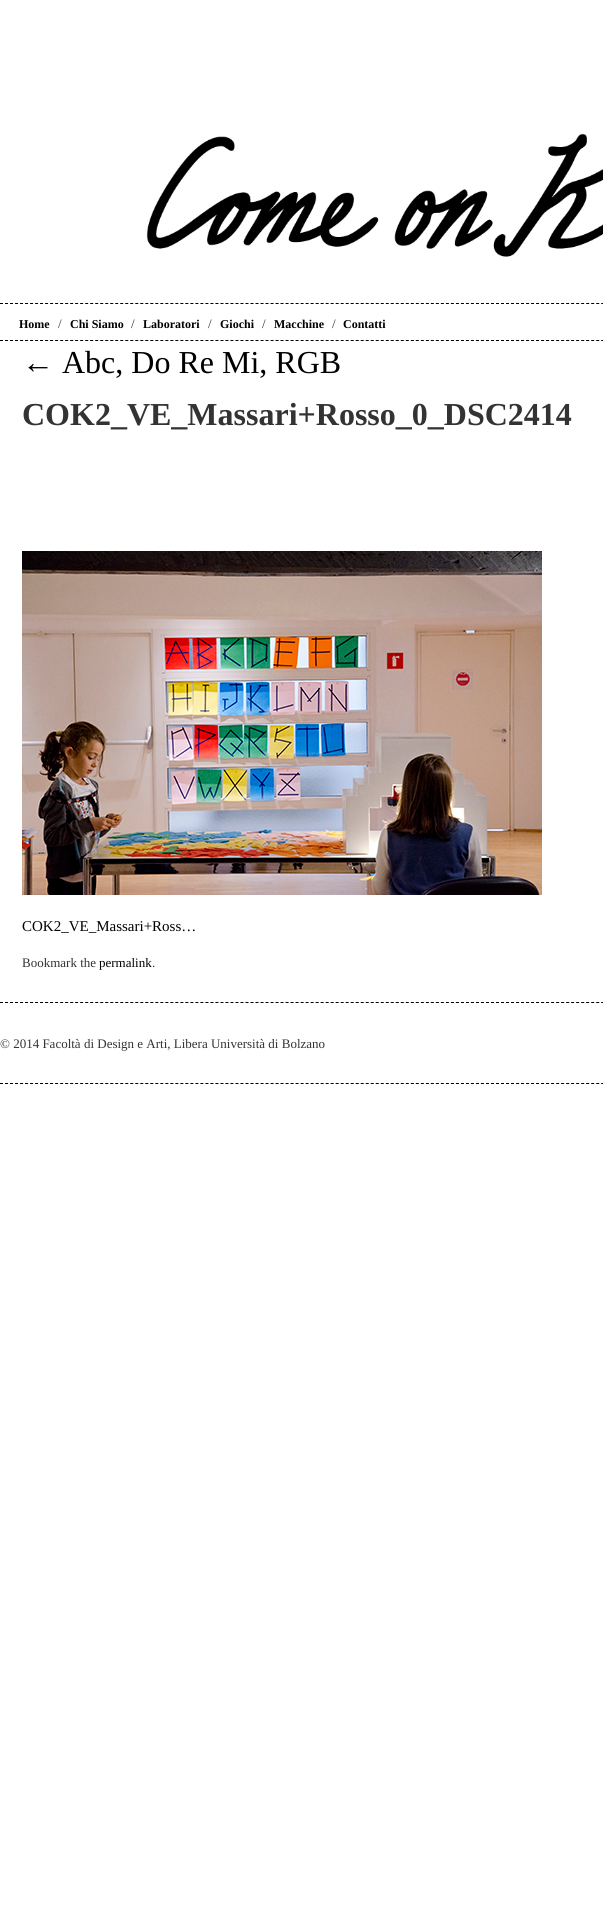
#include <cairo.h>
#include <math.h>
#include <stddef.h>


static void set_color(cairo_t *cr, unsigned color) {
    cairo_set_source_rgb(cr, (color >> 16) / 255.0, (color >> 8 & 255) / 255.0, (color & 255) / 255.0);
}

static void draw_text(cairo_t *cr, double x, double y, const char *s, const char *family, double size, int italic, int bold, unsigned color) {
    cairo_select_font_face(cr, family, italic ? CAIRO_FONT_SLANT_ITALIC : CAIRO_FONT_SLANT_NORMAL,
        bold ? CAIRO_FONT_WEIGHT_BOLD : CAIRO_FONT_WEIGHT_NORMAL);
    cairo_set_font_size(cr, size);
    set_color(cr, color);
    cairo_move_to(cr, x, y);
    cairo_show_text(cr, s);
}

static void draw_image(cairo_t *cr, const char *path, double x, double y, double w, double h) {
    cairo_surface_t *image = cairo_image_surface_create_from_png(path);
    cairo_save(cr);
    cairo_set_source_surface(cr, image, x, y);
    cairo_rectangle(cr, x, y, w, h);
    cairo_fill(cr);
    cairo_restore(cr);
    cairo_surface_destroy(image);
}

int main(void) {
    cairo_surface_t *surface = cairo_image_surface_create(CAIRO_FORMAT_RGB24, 603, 1917);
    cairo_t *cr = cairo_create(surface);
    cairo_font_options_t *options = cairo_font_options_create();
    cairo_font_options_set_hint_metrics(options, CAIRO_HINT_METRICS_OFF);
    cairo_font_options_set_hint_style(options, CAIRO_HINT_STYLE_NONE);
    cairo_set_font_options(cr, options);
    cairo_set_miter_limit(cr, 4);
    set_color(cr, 0xFFFFFF);
    cairo_paint(cr);
    draw_image(cr, "assets/img1.png", 146, 133, 457, 124);
    cairo_new_path(cr);
    cairo_move_to(cr, 0, 303.5);
    cairo_line_to(cr, 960, 303.5);
    set_color(cr, 0x000000);
    cairo_set_line_width(cr, 1);
    cairo_set_dash(cr, (double[]){3, 2.01}, 2, 0);
    cairo_stroke(cr);
    cairo_new_path(cr);
    cairo_move_to(cr, 0, 340.5);
    cairo_line_to(cr, 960, 340.5);
    cairo_stroke(cr);
    draw_text(cr, 19, 328, "Home", "Liberation Serif", 12, 0, 1, 0x000000);
    draw_text(cr, 58, 328, "/", "Liberation Serif", 13, 0, 0, 0x333333);
    draw_text(cr, 70, 328, "Chi Siamo", "Liberation Serif", 12, 0, 1, 0x000000);
    draw_text(cr, 131, 328, "/", "Liberation Serif", 13, 0, 0, 0x333333);
    draw_text(cr, 143, 328, "Laboratori", "Liberation Serif", 12, 0, 1, 0x000000);
    draw_text(cr, 208, 328, "/", "Liberation Serif", 13, 0, 0, 0x333333);
    draw_text(cr, 220, 328, "Giochi", "Liberation Serif", 12, 0, 1, 0x000000);
    draw_text(cr, 262, 328, "/", "Liberation Serif", 13, 0, 0, 0x333333);
    draw_text(cr, 274, 328, "Macchine", "Liberation Serif", 12, 0, 1, 0x000000);
    draw_text(cr, 332, 328, "/", "Liberation Serif", 13, 0, 0, 0x333333);
    draw_text(cr, 343, 328, "Contatti", "Liberation Serif", 12, 0, 1, 0x000000);
    draw_text(cr, 22, 373, "← Abc, Do Re Mi, RGB", "Liberation Serif", 32, 0, 0, 0x000000);
    draw_text(cr, 22, 425, "COK2_VE_Massari+Rosso_0_DSC2414", "Liberation Serif", 32, 0, 1, 0x333333);
    draw_image(cr, "assets/img2.png", 22, 551, 520, 344);
    draw_text(cr, 22, 931, "COK2_VE_Massari+Ross…", "Liberation Serif", 15, 0, 0, 0x000000);
    draw_text(cr, 22, 967, "Bookmark the", "Liberation Serif", 13, 0, 0, 0x333333);
    draw_text(cr, 99, 967, "permalink", "Liberation Serif", 13, 0, 0, 0x000000);
    draw_text(cr, 152, 967, ".", "Liberation Serif", 13, 0, 0, 0x333333);
    cairo_new_path(cr);
    cairo_move_to(cr, 0, 1002.5);
    cairo_line_to(cr, 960, 1002.5);
    set_color(cr, 0x000000);
    cairo_stroke(cr);
    cairo_new_path(cr);
    cairo_move_to(cr, 0, 1083.5);
    cairo_line_to(cr, 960, 1083.5);
    cairo_stroke(cr);
    draw_text(cr, 0, 1048, "© 2014 Facoltà di Design e Arti, Libera Università di Bolzano", "Liberation Serif", 13, 0, 0, 0x333333);
    cairo_surface_write_to_png(surface, "output.png");
    cairo_font_options_destroy(options);
    cairo_destroy(cr);
    cairo_surface_destroy(surface);
    return 0;
}
